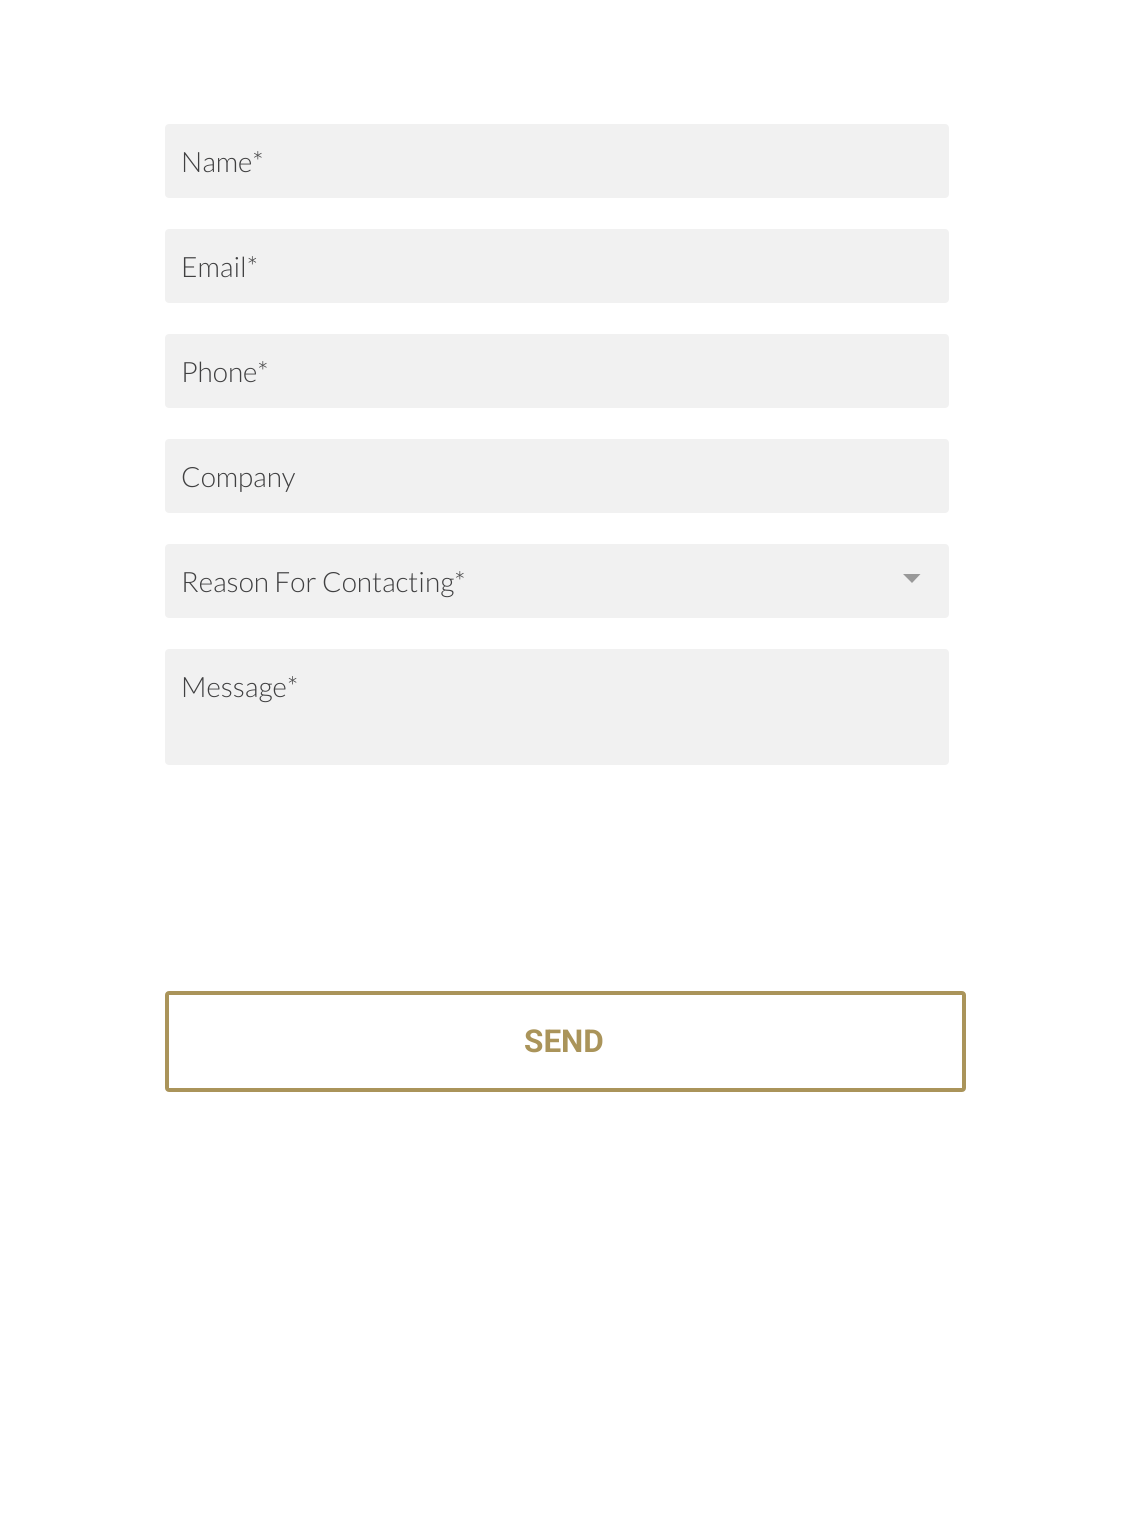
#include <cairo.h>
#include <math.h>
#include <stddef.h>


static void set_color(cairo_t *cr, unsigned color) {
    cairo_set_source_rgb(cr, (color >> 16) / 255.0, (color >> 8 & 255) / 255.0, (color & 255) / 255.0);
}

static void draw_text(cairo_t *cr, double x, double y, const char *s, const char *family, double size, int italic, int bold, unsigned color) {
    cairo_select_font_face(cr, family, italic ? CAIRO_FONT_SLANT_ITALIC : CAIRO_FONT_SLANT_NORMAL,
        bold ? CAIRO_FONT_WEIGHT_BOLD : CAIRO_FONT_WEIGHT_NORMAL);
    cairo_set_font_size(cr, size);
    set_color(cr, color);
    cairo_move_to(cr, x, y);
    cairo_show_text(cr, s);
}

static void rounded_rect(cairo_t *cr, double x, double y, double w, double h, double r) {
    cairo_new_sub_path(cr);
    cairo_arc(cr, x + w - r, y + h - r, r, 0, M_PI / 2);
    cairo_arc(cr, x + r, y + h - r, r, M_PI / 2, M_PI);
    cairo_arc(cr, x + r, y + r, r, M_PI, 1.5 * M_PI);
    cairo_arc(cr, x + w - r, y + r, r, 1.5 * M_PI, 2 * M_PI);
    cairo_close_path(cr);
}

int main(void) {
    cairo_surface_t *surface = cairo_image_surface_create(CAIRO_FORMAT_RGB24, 1128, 1538);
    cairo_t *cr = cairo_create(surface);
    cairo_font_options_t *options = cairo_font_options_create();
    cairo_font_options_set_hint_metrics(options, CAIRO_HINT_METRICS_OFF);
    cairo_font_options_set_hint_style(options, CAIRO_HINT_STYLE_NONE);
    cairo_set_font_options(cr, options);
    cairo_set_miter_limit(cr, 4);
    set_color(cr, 0xFFFFFF);
    cairo_paint(cr);
    set_color(cr, 0xF1F1F1);
    rounded_rect(cr, 165, 124, 784, 74, 4);
    cairo_fill(cr);
    draw_text(cr, 181, 172, "Name*", "Lato Light", 28, 0, 0, 0x404041);
    set_color(cr, 0xF1F1F1);
    rounded_rect(cr, 165, 229, 784, 74, 4);
    cairo_fill(cr);
    draw_text(cr, 181, 277, "Email*", "Lato Light", 28, 0, 0, 0x404041);
    set_color(cr, 0xF1F1F1);
    rounded_rect(cr, 165, 334, 784, 74, 4);
    cairo_fill(cr);
    draw_text(cr, 181, 382, "Phone*", "Lato Light", 28, 0, 0, 0x404041);
    set_color(cr, 0xF1F1F1);
    rounded_rect(cr, 165, 439, 784, 74, 4);
    cairo_fill(cr);
    draw_text(cr, 181, 487, "Company", "Lato Light", 28, 0, 0, 0x404041);
    set_color(cr, 0xF1F1F1);
    rounded_rect(cr, 165, 544, 784, 74, 4);
    cairo_fill(cr);
    draw_text(cr, 181, 592, "Reason For Contacting*", "Lato Light", 28, 0, 0, 0x404041);
    set_color(cr, 0x999999);
    cairo_new_path(cr);
    cairo_move_to(cr, 903, 574);
    cairo_line_to(cr, 920.5, 574);
    cairo_line_to(cr, 912, 583);
    cairo_close_path(cr);
    cairo_fill(cr);
    set_color(cr, 0xF1F1F1);
    rounded_rect(cr, 165, 649, 784, 116, 4);
    cairo_fill(cr);
    draw_text(cr, 181, 697, "Message*", "Lato Light", 28, 0, 0, 0x404041);
    rounded_rect(cr, 167, 993, 797, 97, 2);
    set_color(cr, 0xAA945A);
    cairo_set_line_width(cr, 4);
    cairo_stroke(cr);
    draw_text(cr, 524, 1052, "SEND", "Roboto", 31.5, 0, 1, 0xAA945A);
    cairo_surface_write_to_png(surface, "output.png");
    cairo_font_options_destroy(options);
    cairo_destroy(cr);
    cairo_surface_destroy(surface);
    return 0;
}
